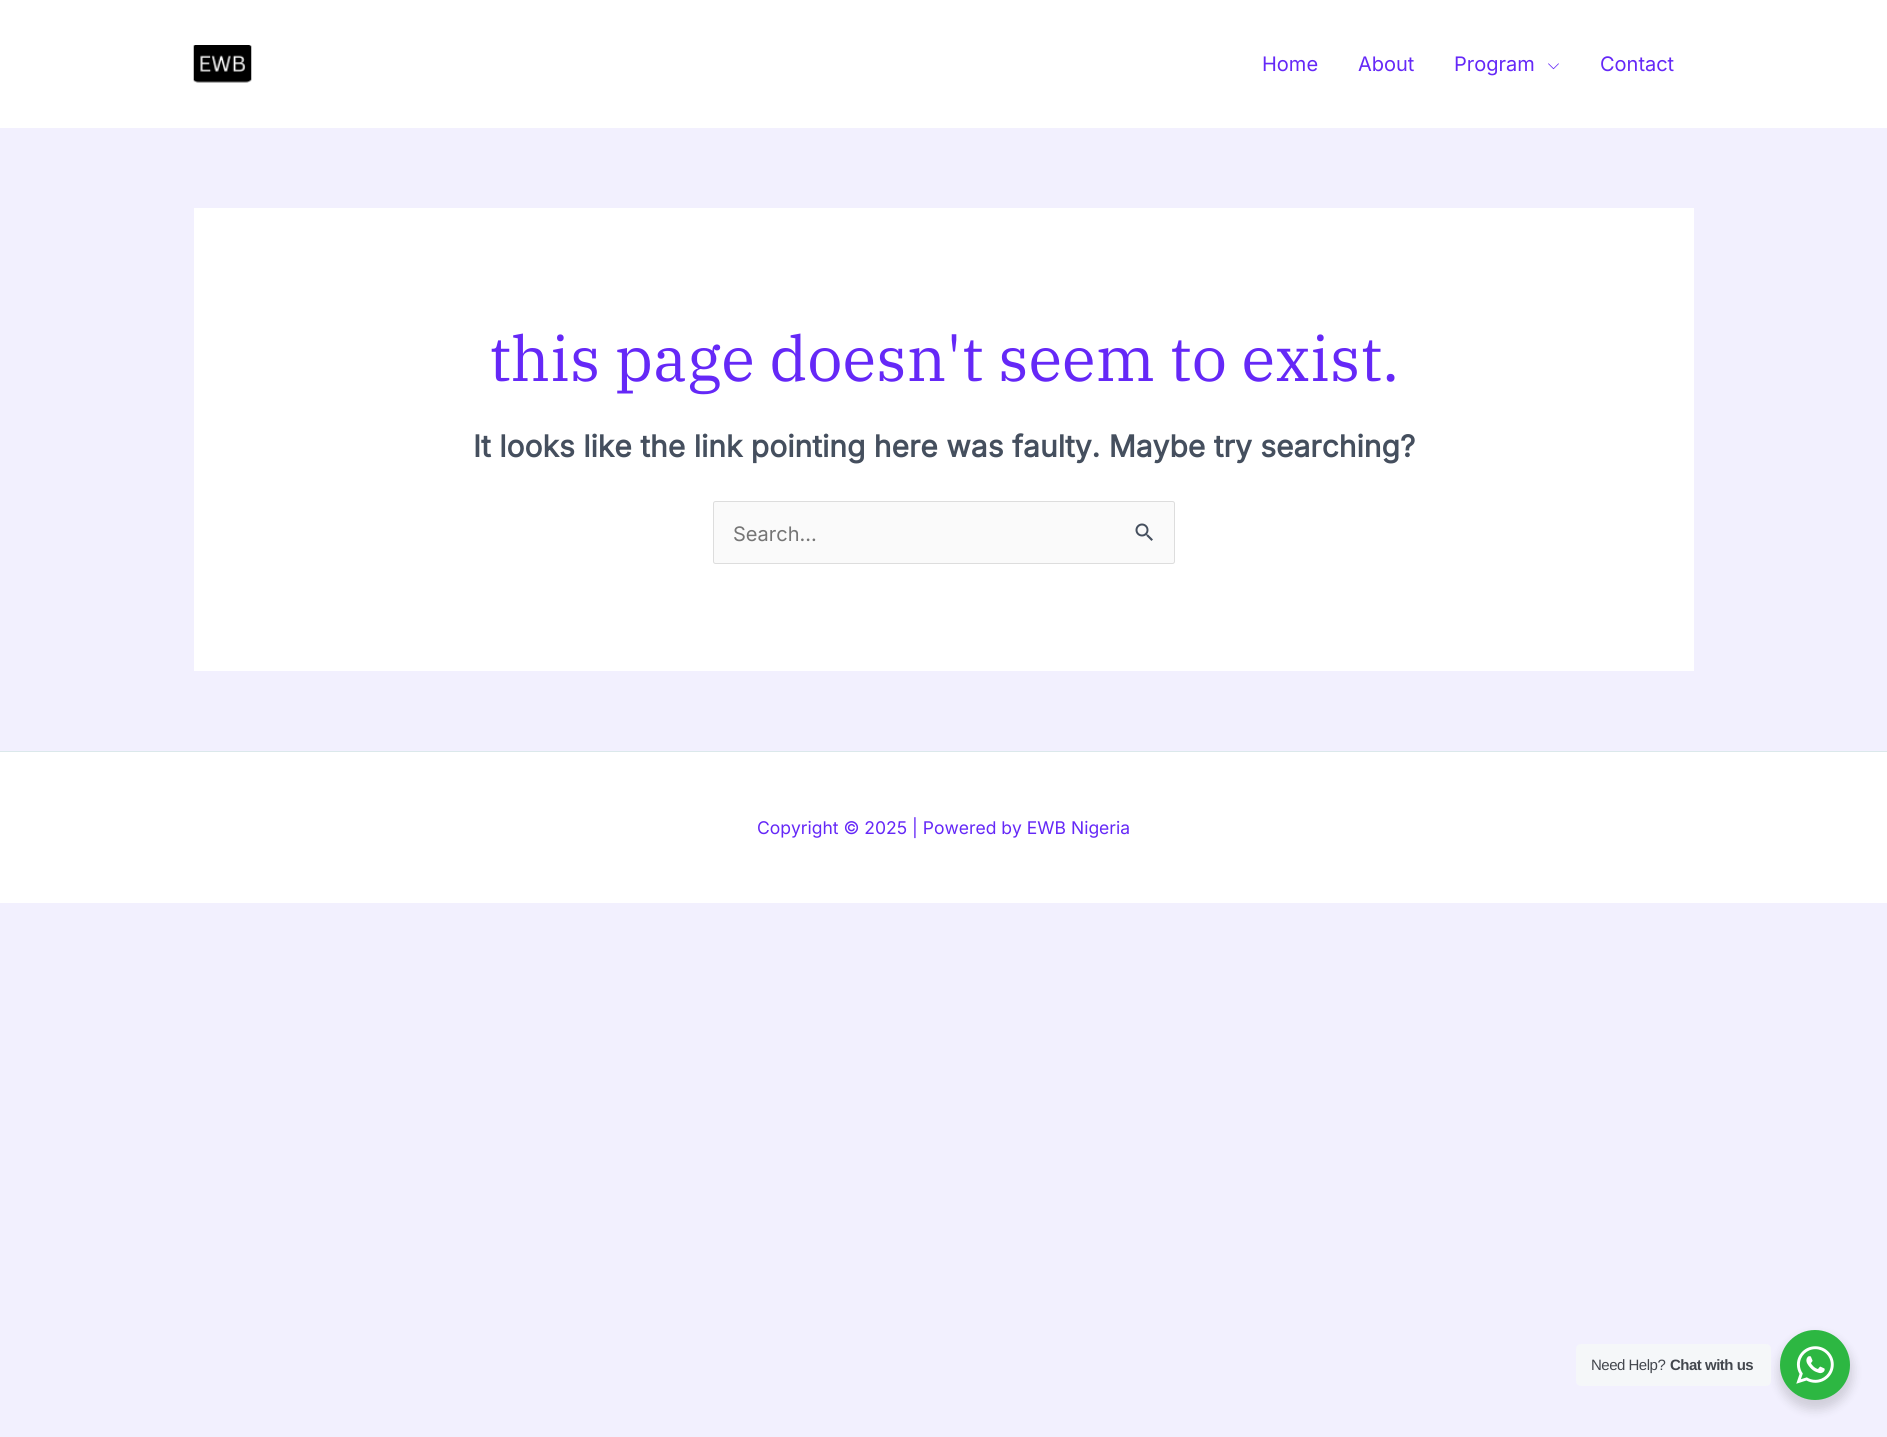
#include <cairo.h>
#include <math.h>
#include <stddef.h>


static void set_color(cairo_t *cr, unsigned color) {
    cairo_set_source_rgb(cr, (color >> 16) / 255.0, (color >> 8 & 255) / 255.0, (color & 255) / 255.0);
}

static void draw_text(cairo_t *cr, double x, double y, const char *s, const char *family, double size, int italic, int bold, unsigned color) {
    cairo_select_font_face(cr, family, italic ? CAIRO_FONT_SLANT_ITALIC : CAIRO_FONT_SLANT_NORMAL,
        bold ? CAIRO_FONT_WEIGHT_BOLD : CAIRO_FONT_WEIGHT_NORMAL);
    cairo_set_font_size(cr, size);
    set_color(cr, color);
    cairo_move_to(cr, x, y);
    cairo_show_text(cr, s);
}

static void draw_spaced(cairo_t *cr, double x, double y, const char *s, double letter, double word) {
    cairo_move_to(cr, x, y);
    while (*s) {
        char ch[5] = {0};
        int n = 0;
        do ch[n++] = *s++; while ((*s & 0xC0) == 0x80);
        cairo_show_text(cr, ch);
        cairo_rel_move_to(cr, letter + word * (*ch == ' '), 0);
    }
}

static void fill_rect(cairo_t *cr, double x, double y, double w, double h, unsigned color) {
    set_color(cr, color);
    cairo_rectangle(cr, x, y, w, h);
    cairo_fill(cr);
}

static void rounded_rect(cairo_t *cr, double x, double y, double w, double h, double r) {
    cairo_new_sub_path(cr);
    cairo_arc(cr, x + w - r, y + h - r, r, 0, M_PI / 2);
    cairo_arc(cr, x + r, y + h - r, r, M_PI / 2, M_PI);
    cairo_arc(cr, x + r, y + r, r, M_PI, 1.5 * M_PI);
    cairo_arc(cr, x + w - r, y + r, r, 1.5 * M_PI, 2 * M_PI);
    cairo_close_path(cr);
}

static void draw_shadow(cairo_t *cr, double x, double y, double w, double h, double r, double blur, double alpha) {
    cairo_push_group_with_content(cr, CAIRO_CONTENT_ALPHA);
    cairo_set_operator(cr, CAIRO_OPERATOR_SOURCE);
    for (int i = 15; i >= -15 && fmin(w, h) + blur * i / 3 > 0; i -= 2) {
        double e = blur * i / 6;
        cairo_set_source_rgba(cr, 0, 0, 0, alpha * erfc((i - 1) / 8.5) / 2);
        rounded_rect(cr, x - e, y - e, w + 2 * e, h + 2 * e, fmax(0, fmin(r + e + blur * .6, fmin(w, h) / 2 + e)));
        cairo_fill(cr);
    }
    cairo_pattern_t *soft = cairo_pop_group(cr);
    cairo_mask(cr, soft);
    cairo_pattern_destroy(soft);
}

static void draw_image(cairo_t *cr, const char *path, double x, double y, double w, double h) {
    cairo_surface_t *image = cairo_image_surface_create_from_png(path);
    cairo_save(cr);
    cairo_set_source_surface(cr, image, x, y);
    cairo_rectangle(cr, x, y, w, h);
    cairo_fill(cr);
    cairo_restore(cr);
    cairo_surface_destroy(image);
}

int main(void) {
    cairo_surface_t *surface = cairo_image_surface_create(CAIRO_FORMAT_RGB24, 1887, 1437);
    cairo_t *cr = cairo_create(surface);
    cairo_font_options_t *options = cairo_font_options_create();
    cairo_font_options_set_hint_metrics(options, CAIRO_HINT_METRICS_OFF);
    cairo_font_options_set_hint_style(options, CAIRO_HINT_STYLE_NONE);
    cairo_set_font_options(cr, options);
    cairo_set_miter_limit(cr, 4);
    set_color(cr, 0xF2F0FE);
    cairo_paint(cr);
    fill_rect(cr, 0, 0, 1887, 128, 0xFFFFFF);
    draw_image(cr, "assets/img1.png", 193, 45, 59, 38);
    draw_text(cr, 1262, 71, "Home", "Inter", 20, 0, 0, 0x6528F7);
    draw_text(cr, 1358, 71, "About", "Inter", 20, 0, 0, 0x6528F7);
    draw_text(cr, 1454, 71, "Program", "Inter", 20, 0, 0, 0x6528F7);
    draw_image(cr, "assets/img2.png", 1548, 63, 11, 7);
    draw_text(cr, 1600, 71, "Contact", "Inter", 20, 0, 0, 0x6528F7);
    fill_rect(cr, 194, 208, 1500, 463, 0xFFFFFF);
    draw_text(cr, 489, 381, "this page doesn't seem to exist.", "IBM Plex Serif", 62.5, 0, 0, 0x6528F7);
    draw_text(cr, 473, 457, "It looks like the link pointing here was faulty. Maybe try searching?", "Inter", 30, 0, 1, 0x454F5E);
    set_color(cr, 0xFAFAFA);
    rounded_rect(cr, 713.5, 501.5, 461, 62, 2);
    cairo_fill_preserve(cr);
    set_color(cr, 0xDDDDDD);
    cairo_set_line_width(cr, 1);
    cairo_stroke(cr);
    draw_text(cr, 733, 541, "Search...", "Inter", 20, 0, 0, 0x757575);
    draw_image(cr, "assets/img3.png", 1135, 523, 18, 18);
    fill_rect(cr, 0, 752, 1887, 151, 0xFFFFFF);
    fill_rect(cr, 0, 751, 1887, 1, 0xDBE8EB);
    draw_text(cr, 757, 834, "Copyright © 2025 | Powered by EWB Nigeria", "Inter", 17.5, 0, 0, 0x6528F7);
    set_color(cr, 0x000000);
    draw_shadow(cr, 1778, 1335, 75, 75, 37.5, 5, 0.14);
    set_color(cr, 0xF5F7F9);
    rounded_rect(cr, 1576, 1344, 195, 42, 5);
    cairo_fill(cr);
    cairo_select_font_face(cr, "Liberation Sans", CAIRO_FONT_SLANT_NORMAL, CAIRO_FONT_WEIGHT_NORMAL);
    cairo_set_font_size(cr, 15);
    set_color(cr, 0x43474E);
    draw_spaced(cr, 1591, 1370, "Need Help?", -0.5, 0);
    cairo_select_font_face(cr, "Liberation Sans", CAIRO_FONT_SLANT_NORMAL, CAIRO_FONT_WEIGHT_BOLD);
    draw_spaced(cr, 1670, 1370, "Chat with us", -0.5, 0);
    set_color(cr, 0x2DB742);
    cairo_new_path(cr);
    cairo_arc(cr, 1815, 1365, 35, 0, 2 * M_PI);
    cairo_fill(cr);
    draw_image(cr, "assets/img4.png", 1796, 1346, 38, 38);
    cairo_surface_write_to_png(surface, "output.png");
    cairo_font_options_destroy(options);
    cairo_destroy(cr);
    cairo_surface_destroy(surface);
    return 0;
}
